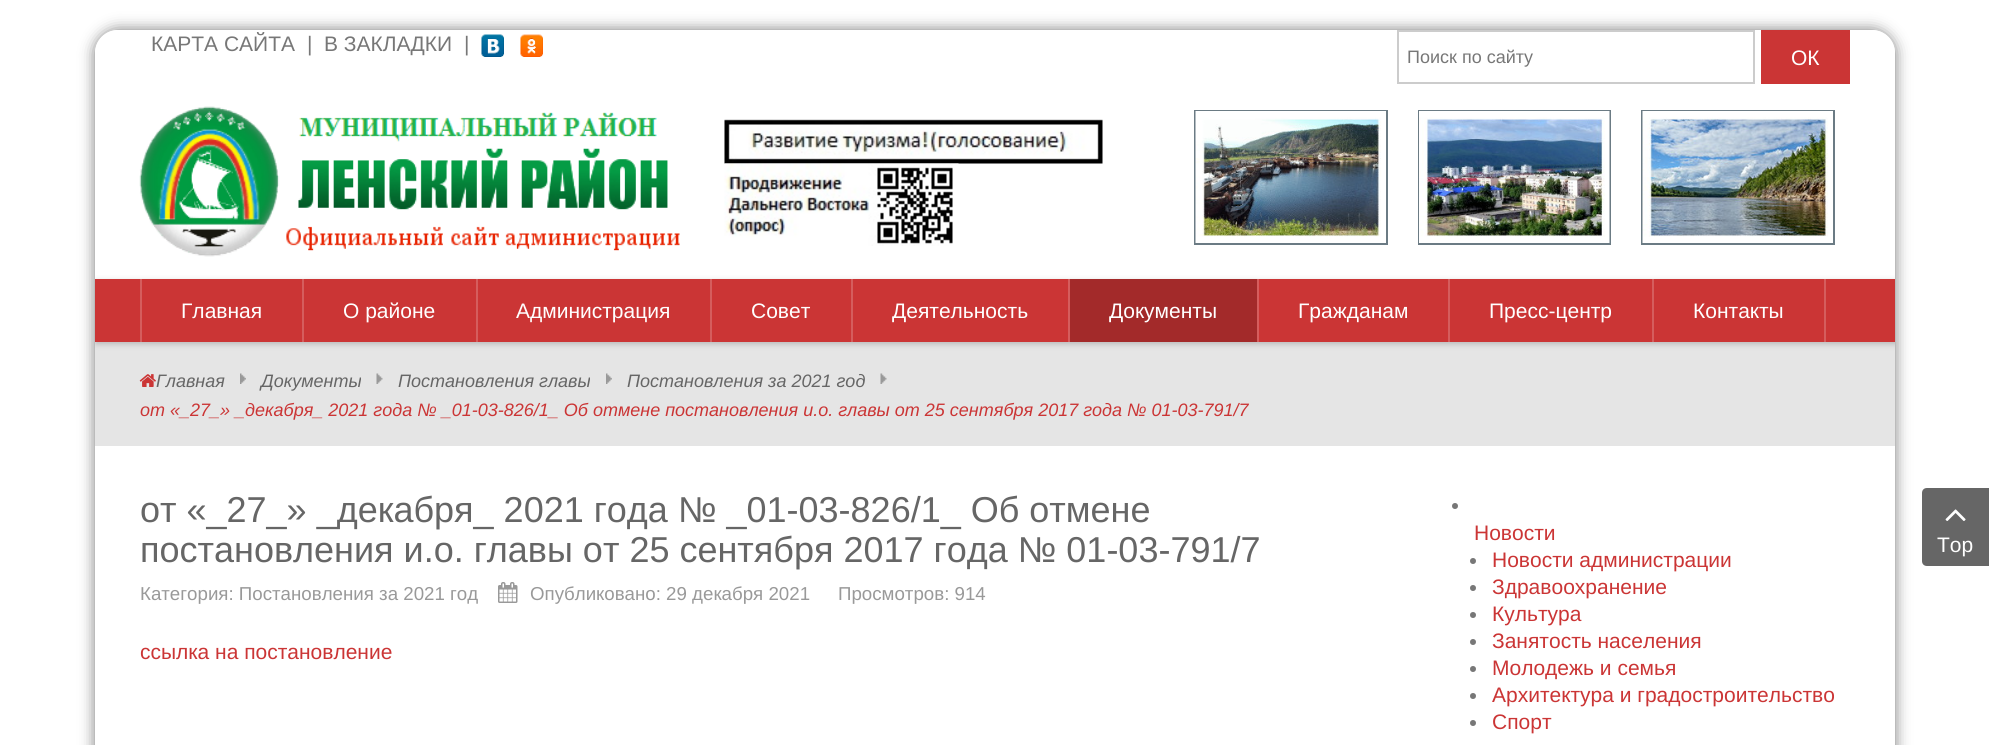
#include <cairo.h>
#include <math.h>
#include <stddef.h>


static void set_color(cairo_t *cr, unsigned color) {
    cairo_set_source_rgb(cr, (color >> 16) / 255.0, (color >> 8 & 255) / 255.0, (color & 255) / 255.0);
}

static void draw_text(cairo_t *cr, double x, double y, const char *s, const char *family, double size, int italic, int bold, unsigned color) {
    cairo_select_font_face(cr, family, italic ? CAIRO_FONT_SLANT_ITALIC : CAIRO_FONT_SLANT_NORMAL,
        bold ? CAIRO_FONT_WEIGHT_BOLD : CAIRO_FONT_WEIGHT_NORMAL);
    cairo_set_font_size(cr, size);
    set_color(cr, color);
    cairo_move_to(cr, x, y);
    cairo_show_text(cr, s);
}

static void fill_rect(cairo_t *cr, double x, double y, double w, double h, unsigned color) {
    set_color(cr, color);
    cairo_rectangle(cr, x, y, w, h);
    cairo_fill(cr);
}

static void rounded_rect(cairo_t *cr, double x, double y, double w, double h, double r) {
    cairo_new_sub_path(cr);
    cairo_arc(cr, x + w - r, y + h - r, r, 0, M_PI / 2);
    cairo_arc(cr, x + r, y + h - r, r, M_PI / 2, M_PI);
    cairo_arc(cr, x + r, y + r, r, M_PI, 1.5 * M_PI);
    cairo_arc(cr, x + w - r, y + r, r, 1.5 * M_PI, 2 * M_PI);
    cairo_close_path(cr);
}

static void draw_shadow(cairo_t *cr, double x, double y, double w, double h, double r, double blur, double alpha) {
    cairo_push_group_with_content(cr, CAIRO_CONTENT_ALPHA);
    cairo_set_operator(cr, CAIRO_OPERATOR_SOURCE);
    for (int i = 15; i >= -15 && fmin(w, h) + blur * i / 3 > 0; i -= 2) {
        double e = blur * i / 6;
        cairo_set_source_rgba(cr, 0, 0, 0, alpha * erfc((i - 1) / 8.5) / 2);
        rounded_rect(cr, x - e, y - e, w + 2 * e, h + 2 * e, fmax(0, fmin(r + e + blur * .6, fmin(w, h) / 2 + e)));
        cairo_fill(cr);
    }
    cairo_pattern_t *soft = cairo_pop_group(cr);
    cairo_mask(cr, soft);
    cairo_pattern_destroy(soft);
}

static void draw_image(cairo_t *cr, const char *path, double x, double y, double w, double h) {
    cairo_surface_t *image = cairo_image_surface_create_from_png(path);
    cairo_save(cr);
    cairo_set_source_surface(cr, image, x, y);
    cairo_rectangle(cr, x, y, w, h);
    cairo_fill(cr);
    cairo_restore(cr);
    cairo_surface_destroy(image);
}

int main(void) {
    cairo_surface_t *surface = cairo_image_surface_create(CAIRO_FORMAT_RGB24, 1989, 745);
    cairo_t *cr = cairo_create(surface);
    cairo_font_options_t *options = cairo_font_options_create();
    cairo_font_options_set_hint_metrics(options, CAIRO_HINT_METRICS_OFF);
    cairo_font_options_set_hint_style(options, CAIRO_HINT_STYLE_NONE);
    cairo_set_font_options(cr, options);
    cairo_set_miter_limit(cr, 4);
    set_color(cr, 0xFFFFFF);
    cairo_paint(cr);
    set_color(cr, 0x777777);
    draw_shadow(cr, 95, 30, 1800, 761, 23, 7.5, 1);
    set_color(cr, 0xFFFFFF);
    rounded_rect(cr, 95, 30, 1800, 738, 23);
    cairo_fill(cr);
    cairo_new_path(cr);
    cairo_move_to(cr, 118, 30);
    cairo_line_to(cr, 1872, 30);
    cairo_curve_to(cr, 1884.5, 30, 1895, 40.5, 1895, 53);
    cairo_line_to(cr, 1895, 84);
    cairo_line_to(cr, 95, 84);
    cairo_line_to(cr, 95, 53);
    cairo_curve_to(cr, 95, 40.5, 105.5, 30, 118, 30);
    cairo_close_path(cr);
    cairo_fill(cr);
    draw_text(cr, 151, 51, "КАРТА САЙТА", "Liberation Sans", 21, 0, 0, 0x777777);
    draw_text(cr, 307, 51, "|", "Liberation Sans", 21, 0, 0, 0x777777);
    draw_text(cr, 324, 51, "В ЗАКЛАДКИ", "Liberation Sans", 21, 0, 0, 0x777777);
    draw_text(cr, 464, 51, "|", "Liberation Sans", 21, 0, 0, 0x777777);
    draw_image(cr, "assets/img1.png", 481, 34, 23, 23);
    draw_image(cr, "assets/img2.png", 520, 34, 23, 23);
    cairo_rectangle(cr, 1398, 31, 356, 52);
    set_color(cr, 0xCCCCCC);
    cairo_stroke(cr);
    draw_text(cr, 1407, 63, "Поиск по сайту", "Liberation Sans", 18, 0, 0, 0x777777);
    fill_rect(cr, 1761, 30, 89, 54, 0xCB3535);
    draw_text(cr, 1791, 65, "ОК", "Liberation Sans", 21, 0, 0, 0xFFFFFF);
    draw_image(cr, "assets/img3.png", 139, 106, 541, 151);
    draw_image(cr, "assets/img4.png", 724, 119, 379, 45);
    draw_image(cr, "assets/img5.png", 724, 163, 235, 83);
    cairo_rectangle(cr, 1195, 111, 192, 133);
    set_color(cr, 0x6B7B84);
    cairo_stroke(cr);
    draw_image(cr, "assets/img6.png", 1195, 111, 191, 132);
    cairo_rectangle(cr, 1419, 111, 191, 133);
    cairo_stroke(cr);
    draw_image(cr, "assets/img7.png", 1419, 111, 191, 132);
    cairo_rectangle(cr, 1642, 111, 192, 133);
    cairo_stroke(cr);
    draw_image(cr, "assets/img8.png", 1642, 111, 191, 132);
    fill_rect(cr, 95, 342, 1800, 104, 0xE5E5E5);
    cairo_save(cr);
    rounded_rect(cr, 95, 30, 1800, 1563, 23);
    cairo_clip(cr);
    set_color(cr, 0x000000);
    draw_shadow(cr, 96, 281, 1800, 63, 0, 3, 0.2);
    cairo_restore(cr);
    fill_rect(cr, 95, 279, 1800, 63, 0xCB3535);
    fill_rect(cr, 302, 279, 2, 63, 0xD55D5D);
    fill_rect(cr, 140, 279, 2, 63, 0xD55D5D);
    draw_text(cr, 181, 318, "Главная", "Liberation Sans", 21, 0, 0, 0xFFFFFF);
    fill_rect(cr, 476, 279, 2, 63, 0xD55D5D);
    draw_text(cr, 343, 318, "О районе", "Liberation Sans", 21, 0, 0, 0xFFFFFF);
    fill_rect(cr, 710, 279, 2, 63, 0xD55D5D);
    draw_text(cr, 516, 318, "Администрация", "Liberation Sans", 21, 0, 0, 0xFFFFFF);
    fill_rect(cr, 851, 279, 2, 63, 0xD55D5D);
    draw_text(cr, 751, 318, "Совет", "Liberation Sans", 21, 0, 0, 0xFFFFFF);
    fill_rect(cr, 1068, 279, 2, 63, 0xD55D5D);
    draw_text(cr, 892, 318, "Деятельность", "Liberation Sans", 21, 0, 0, 0xFFFFFF);
    fill_rect(cr, 1257, 279, 2, 63, 0xD55D5D);
    fill_rect(cr, 1070, 279, 187, 63, 0xA32A2A);
    draw_text(cr, 1109, 318, "Документы", "Liberation Sans", 21, 0, 0, 0xFFFFFF);
    fill_rect(cr, 1448, 279, 2, 63, 0xD55D5D);
    draw_text(cr, 1298, 318, "Гражданам", "Liberation Sans", 21, 0, 0, 0xFFFFFF);
    fill_rect(cr, 1652, 279, 2, 63, 0xD55D5D);
    draw_text(cr, 1489, 318, "Пресс-центр", "Liberation Sans", 21, 0, 0, 0xFFFFFF);
    fill_rect(cr, 1824, 279, 2, 63, 0xD55D5D);
    draw_text(cr, 1693, 318, "Контакты", "Liberation Sans", 21, 0, 0, 0xFFFFFF);
    draw_image(cr, "assets/img9.png", 139, 374, 17, 13);
    draw_text(cr, 156, 387, "Главная", "Liberation Sans", 18, 1, 0, 0x666666);
    draw_image(cr, "assets/img10.png", 240, 373, 6, 11);
    draw_text(cr, 261, 387, "Документы", "Liberation Sans", 18, 1, 0, 0x666666);
    draw_image(cr, "assets/img11.png", 376, 373, 7, 11);
    draw_text(cr, 398, 387, "Постановления главы", "Liberation Sans", 18, 1, 0, 0x666666);
    draw_image(cr, "assets/img10.png", 606, 373, 6, 11);
    draw_text(cr, 627, 387, "Постановления за 2021 год", "Liberation Sans", 18, 1, 0, 0x666666);
    draw_image(cr, "assets/img12.png", 880, 373, 7, 11);
    draw_text(cr, 140, 416, "от «_27_» _декабря_ 2021 года № _01-03-826/1_ Об отмене постановления и.о. главы от 25 сентября 2017 года № 01-03-791/7", "Liberation Sans", 18, 1, 0, 0xCB3535);
    draw_text(cr, 140, 522, "от «_27_» _декабря_ 2021 года № _01-03-826/1_ Об отмене", "Liberation Sans", 36, 0, 0, 0x666666);
    draw_text(cr, 140, 562, "постановления и.о. главы от 25 сентября 2017 года № 01-03-791/7", "Liberation Sans", 36, 0, 0, 0x666666);
    draw_text(cr, 140, 600, "Категория: Постановления за 2021 год", "Liberation Sans", 18.7, 0, 0, 0x999999);
    draw_image(cr, "assets/img13.png", 498, 582, 20, 21);
    draw_text(cr, 530, 600, "Опубликовано: 29 декабря 2021", "Liberation Sans", 18.7, 0, 0, 0x999999);
    draw_text(cr, 838, 600, "Просмотров: 914", "Liberation Sans", 18.7, 0, 0, 0x999999);
    draw_text(cr, 140, 659, "ссылка на постановление", "Liberation Sans", 21, 0, 0, 0xCB3535);
    set_color(cr, 0x777777);
    cairo_new_path(cr);
    cairo_arc(cr, 1455, 506, 3, 0, 2 * M_PI);
    cairo_fill(cr);
    draw_text(cr, 1474, 540, "Новости", "Liberation Sans", 21, 0, 0, 0xCB3535);
    set_color(cr, 0x777777);
    cairo_new_path(cr);
    cairo_arc(cr, 1473, 561, 3, 0, 2 * M_PI);
    cairo_fill(cr);
    draw_text(cr, 1492, 567, "Новости администрации", "Liberation Sans", 21, 0, 0, 0xCB3535);
    set_color(cr, 0x777777);
    cairo_new_path(cr);
    cairo_arc(cr, 1473, 588, 3, 0, 2 * M_PI);
    cairo_fill(cr);
    draw_text(cr, 1492, 594, "Здравоохранение", "Liberation Sans", 21, 0, 0, 0xCB3535);
    set_color(cr, 0x777777);
    cairo_new_path(cr);
    cairo_arc(cr, 1473, 615, 3, 0, 2 * M_PI);
    cairo_fill(cr);
    draw_text(cr, 1492, 621, "Культура", "Liberation Sans", 21, 0, 0, 0xCB3535);
    set_color(cr, 0x777777);
    cairo_new_path(cr);
    cairo_arc(cr, 1473, 642, 3, 0, 2 * M_PI);
    cairo_fill(cr);
    draw_text(cr, 1492, 648, "Занятость населения", "Liberation Sans", 21, 0, 0, 0xCB3535);
    set_color(cr, 0x777777);
    cairo_new_path(cr);
    cairo_arc(cr, 1473, 669, 3, 0, 2 * M_PI);
    cairo_fill(cr);
    draw_text(cr, 1492, 675, "Молодежь и семья", "Liberation Sans", 21, 0, 0, 0xCB3535);
    set_color(cr, 0x777777);
    cairo_new_path(cr);
    cairo_arc(cr, 1473, 696, 3, 0, 2 * M_PI);
    cairo_fill(cr);
    draw_text(cr, 1492, 702, "Архитектура и градостроительство", "Liberation Sans", 21, 0, 0, 0xCB3535);
    set_color(cr, 0x777777);
    cairo_new_path(cr);
    cairo_arc(cr, 1473, 723, 3, 0, 2 * M_PI);
    cairo_fill(cr);
    draw_text(cr, 1492, 729, "Спорт", "Liberation Sans", 21, 0, 0, 0xCB3535);
    set_color(cr, 0x666666);
    cairo_new_path(cr);
    cairo_move_to(cr, 1927, 488);
    cairo_line_to(cr, 1989, 488);
    cairo_line_to(cr, 1989, 566);
    cairo_line_to(cr, 1927, 566);
    cairo_curve_to(cr, 1924, 566, 1922, 564, 1922, 561);
    cairo_line_to(cr, 1922, 493);
    cairo_curve_to(cr, 1922, 490, 1924, 488, 1927, 488);
    cairo_close_path(cr);
    cairo_fill(cr);
    draw_image(cr, "assets/img14.png", 1945, 509, 21, 12);
    draw_text(cr, 1937, 552, "Top", "Liberation Sans", 21, 0, 0, 0xFFFFFF);
    cairo_surface_write_to_png(surface, "output.png");
    cairo_font_options_destroy(options);
    cairo_destroy(cr);
    cairo_surface_destroy(surface);
    return 0;
}
